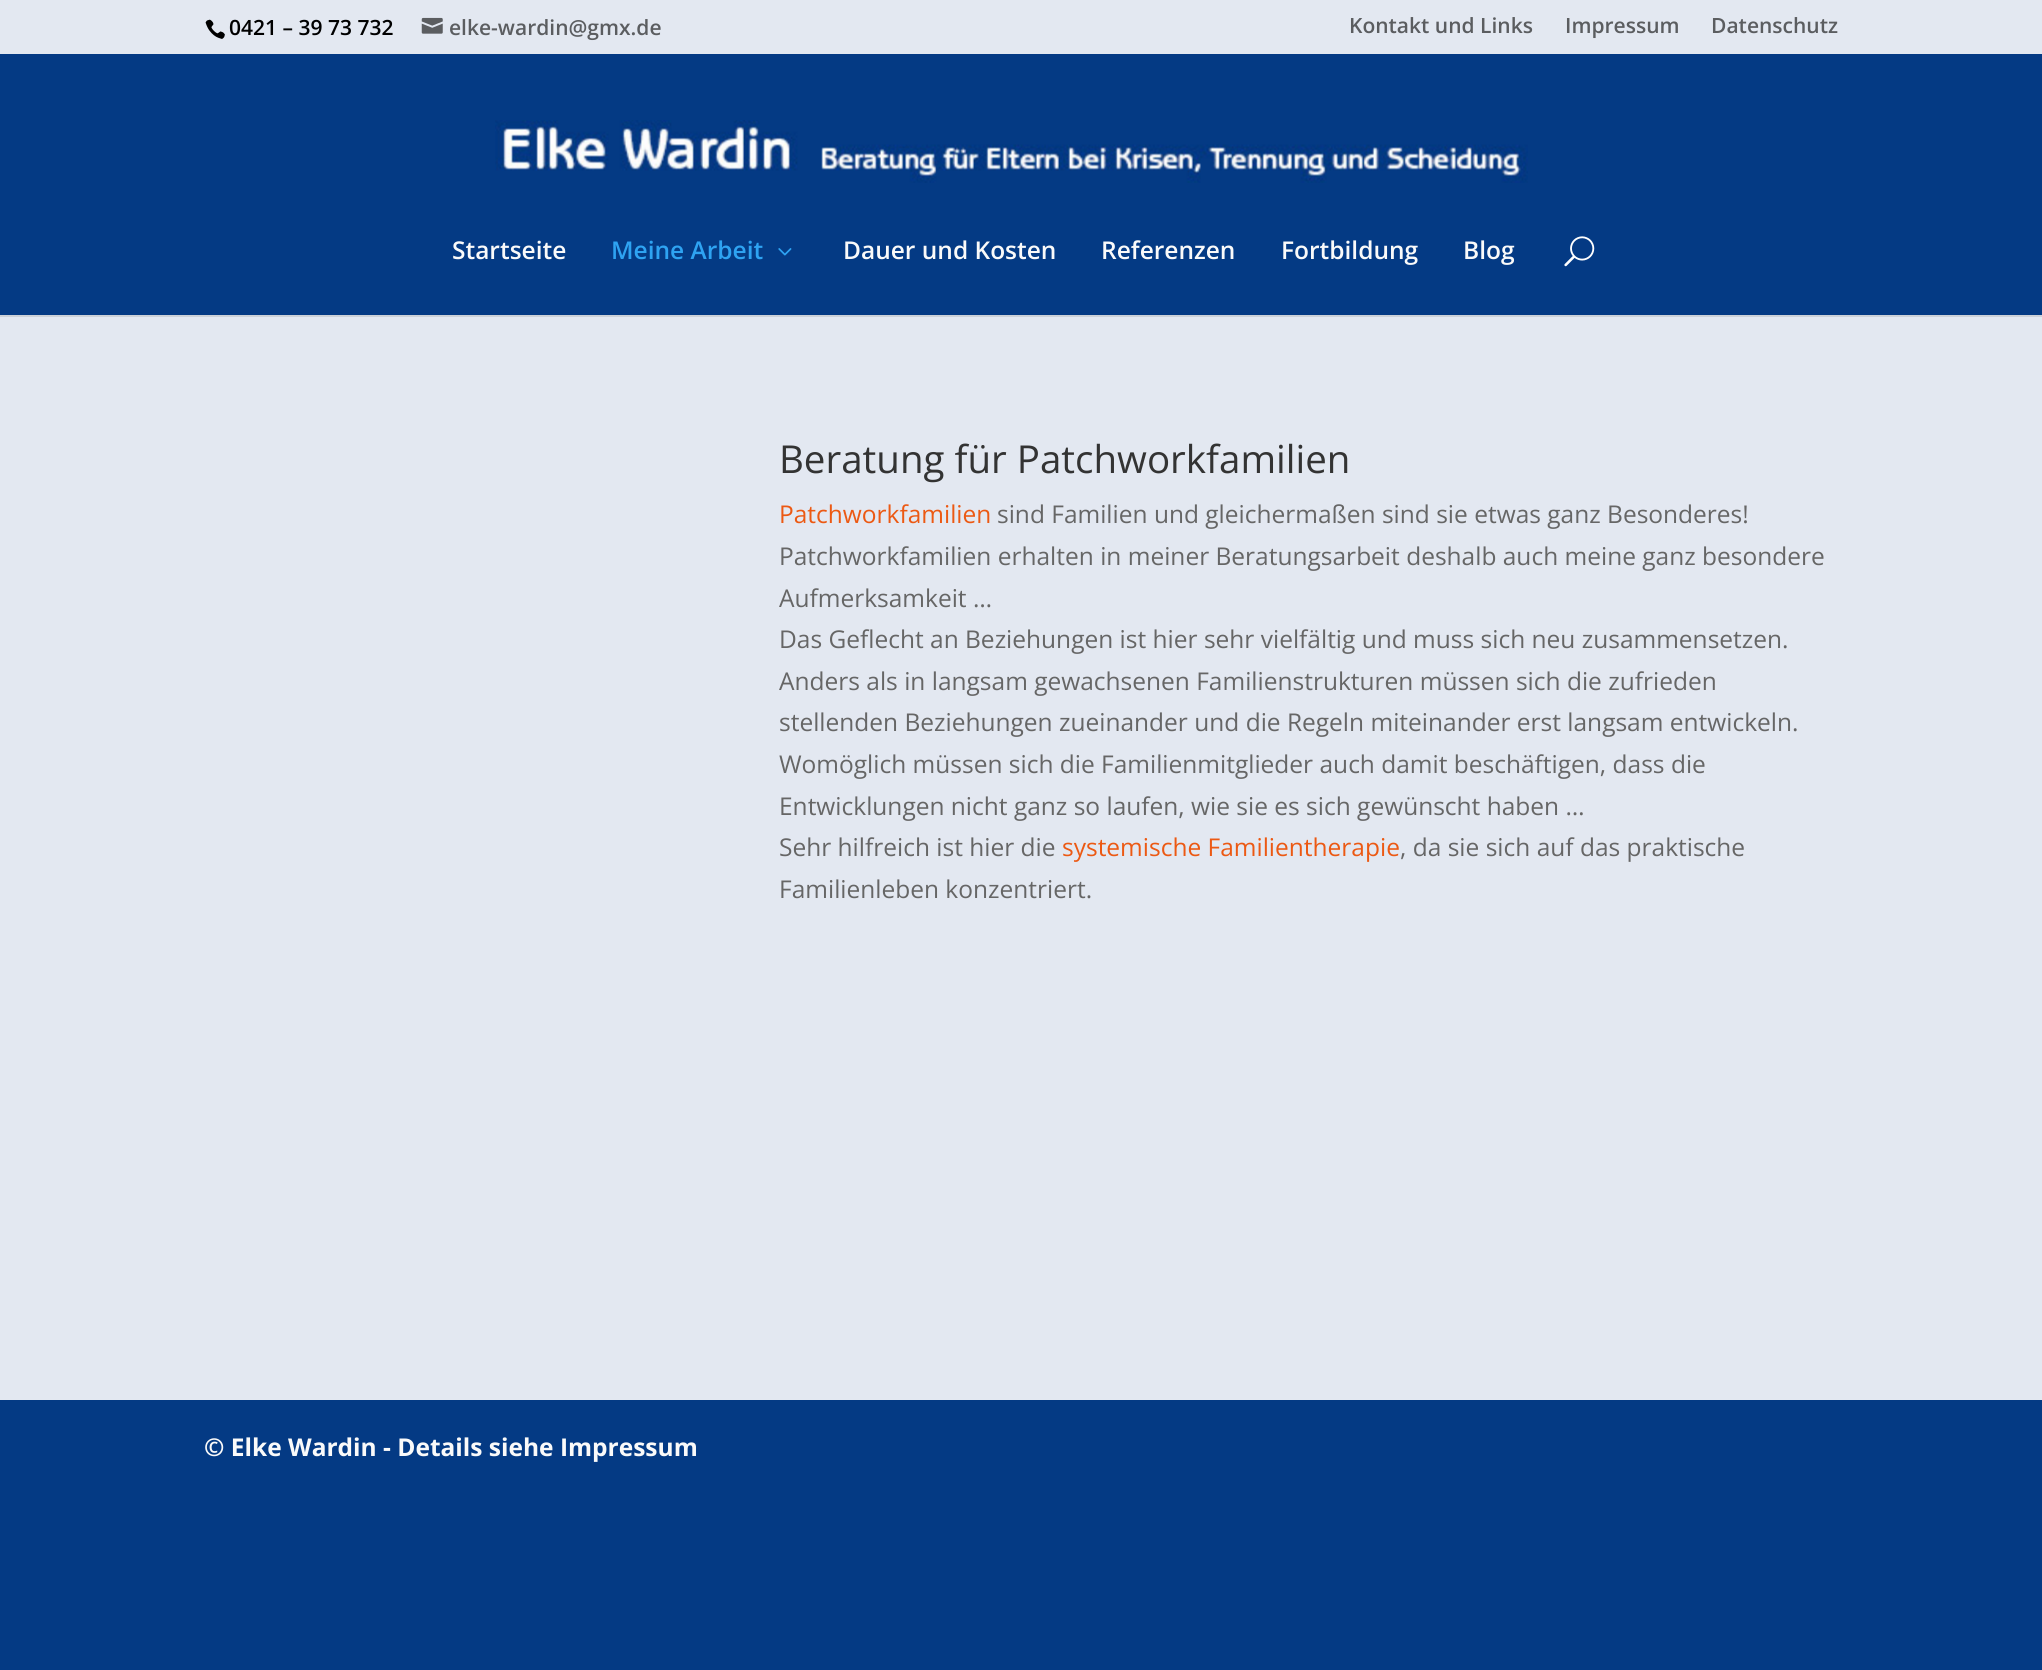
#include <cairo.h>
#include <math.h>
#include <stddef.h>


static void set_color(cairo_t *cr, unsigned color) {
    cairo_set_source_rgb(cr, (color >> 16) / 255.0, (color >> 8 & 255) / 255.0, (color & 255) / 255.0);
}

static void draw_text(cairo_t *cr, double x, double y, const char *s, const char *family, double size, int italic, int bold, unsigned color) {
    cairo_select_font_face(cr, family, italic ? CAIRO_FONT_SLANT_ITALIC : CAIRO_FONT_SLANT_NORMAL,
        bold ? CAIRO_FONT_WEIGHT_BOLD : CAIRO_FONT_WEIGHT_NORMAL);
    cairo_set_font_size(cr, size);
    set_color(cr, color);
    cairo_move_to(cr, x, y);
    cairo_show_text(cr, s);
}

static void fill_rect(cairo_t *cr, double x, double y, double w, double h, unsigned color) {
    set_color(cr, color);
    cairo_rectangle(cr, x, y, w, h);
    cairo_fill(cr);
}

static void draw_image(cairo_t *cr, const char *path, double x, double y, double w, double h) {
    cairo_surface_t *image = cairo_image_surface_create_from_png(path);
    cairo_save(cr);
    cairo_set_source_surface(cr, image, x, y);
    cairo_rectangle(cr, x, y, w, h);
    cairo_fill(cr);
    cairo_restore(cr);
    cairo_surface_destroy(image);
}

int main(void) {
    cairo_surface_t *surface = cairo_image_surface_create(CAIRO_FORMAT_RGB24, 2042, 1670);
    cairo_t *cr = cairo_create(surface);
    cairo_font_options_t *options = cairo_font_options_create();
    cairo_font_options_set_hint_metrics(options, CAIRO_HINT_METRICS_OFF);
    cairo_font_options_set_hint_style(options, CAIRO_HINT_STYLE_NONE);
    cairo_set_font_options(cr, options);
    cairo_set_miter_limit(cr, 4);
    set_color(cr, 0x043A84);
    cairo_paint(cr);
    fill_rect(cr, 0, 0, 2042, 54, 0xE3E8F1);
    draw_image(cr, "assets/img1.png", 205, 19, 20, 20);
    draw_text(cr, 229, 35, "0421 – 39 73 732", "Open Sans SemiBold", 21, 0, 0, 0x000000);
    draw_image(cr, "assets/img2.png", 421, 17, 22, 17);
    draw_text(cr, 449, 35, "elke-wardin@gmx.de", "Open Sans SemiBold", 21, 0, 0, 0x5B5D60);
    draw_text(cr, 1349, 33, "Kontakt und Links", "Open Sans SemiBold", 21, 0, 0, 0x5B5D60);
    draw_text(cr, 1565, 33, "Impressum", "Open Sans SemiBold", 21, 0, 0, 0x5B5D60);
    draw_text(cr, 1711, 33, "Datenschutz", "Open Sans SemiBold", 21, 0, 0, 0x5B5D60);
    fill_rect(cr, 0, 315, 2042, 2, 0xCCD1D9);
    draw_image(cr, "assets/img3.png", 495, 120, 1033, 63);
    draw_text(cr, 452, 259, "Startseite", "Open Sans SemiBold", 24.5, 0, 0, 0xFAFAFA);
    draw_text(cr, 611, 259, "Meine Arbeit", "Open Sans SemiBold", 24.5, 0, 0, 0x2EA3F2);
    draw_image(cr, "assets/img4.png", 778, 248, 14, 8);
    draw_text(cr, 843, 259, "Dauer und Kosten", "Open Sans SemiBold", 24.5, 0, 0, 0xFAFAFA);
    draw_text(cr, 1101, 259, "Referenzen", "Open Sans SemiBold", 24.5, 0, 0, 0xFAFAFA);
    draw_text(cr, 1281, 259, "Fortbildung", "Open Sans SemiBold", 24.5, 0, 0, 0xFAFAFA);
    draw_text(cr, 1463, 259, "Blog", "Open Sans SemiBold", 24.5, 0, 0, 0xFAFAFA);
    draw_image(cr, "assets/img5.png", 1564, 236, 31, 31);
    fill_rect(cr, 0, 317, 2042, 1083, 0xE3E8F1);
    draw_text(cr, 779, 473, "Beratung für Patchworkfamilien", "Open Sans", 38.5, 0, 0, 0x333333);
    draw_text(cr, 779, 523, "Patchworkfamilien", "Open Sans", 24.5, 0, 0, 0xEC5913);
    draw_text(cr, 997, 523, "sind Familien und gleichermaßen sind sie etwas ganz Besonderes!", "Open Sans", 24.5, 0, 0, 0x666666);
    draw_text(cr, 779, 565, "Patchworkfamilien erhalten in meiner Beratungsarbeit deshalb auch meine ganz besondere", "Open Sans", 24.5, 0, 0, 0x666666);
    draw_text(cr, 779, 607, "Aufmerksamkeit …", "Open Sans", 24.5, 0, 0, 0x666666);
    draw_text(cr, 779, 648, "Das Geflecht an Beziehungen ist hier sehr vielfältig und muss sich neu zusammensetzen.", "Open Sans", 24.5, 0, 0, 0x666666);
    draw_text(cr, 779, 690, "Anders als in langsam gewachsenen Familienstrukturen müssen sich die zufrieden", "Open Sans", 24.5, 0, 0, 0x666666);
    draw_text(cr, 779, 731, "stellenden Beziehungen zueinander und die Regeln miteinander erst langsam entwickeln.", "Open Sans", 24.5, 0, 0, 0x666666);
    draw_text(cr, 779, 773, "Womöglich müssen sich die Familienmitglieder auch damit beschäftigen, dass die", "Open Sans", 24.5, 0, 0, 0x666666);
    draw_text(cr, 779, 815, "Entwicklungen nicht ganz so laufen, wie sie es sich gewünscht haben …", "Open Sans", 24.5, 0, 0, 0x666666);
    draw_text(cr, 779, 856, "Sehr hilfreich ist hier die", "Open Sans", 24.5, 0, 0, 0x666666);
    draw_text(cr, 1062, 856, "systemische Familientherapie", "Open Sans", 24.5, 0, 0, 0xEC5913);
    draw_text(cr, 1400, 856, ", da sie sich auf das praktische", "Open Sans", 24.5, 0, 0, 0x666666);
    draw_text(cr, 779, 898, "Familienleben konzentriert.", "Open Sans", 24.5, 0, 0, 0x666666);
    draw_text(cr, 204, 1456, "© Elke Wardin - Details siehe Impressum", "Open Sans", 24.5, 0, 1, 0xFAFAFA);
    cairo_surface_write_to_png(surface, "output.png");
    cairo_font_options_destroy(options);
    cairo_destroy(cr);
    cairo_surface_destroy(surface);
    return 0;
}
